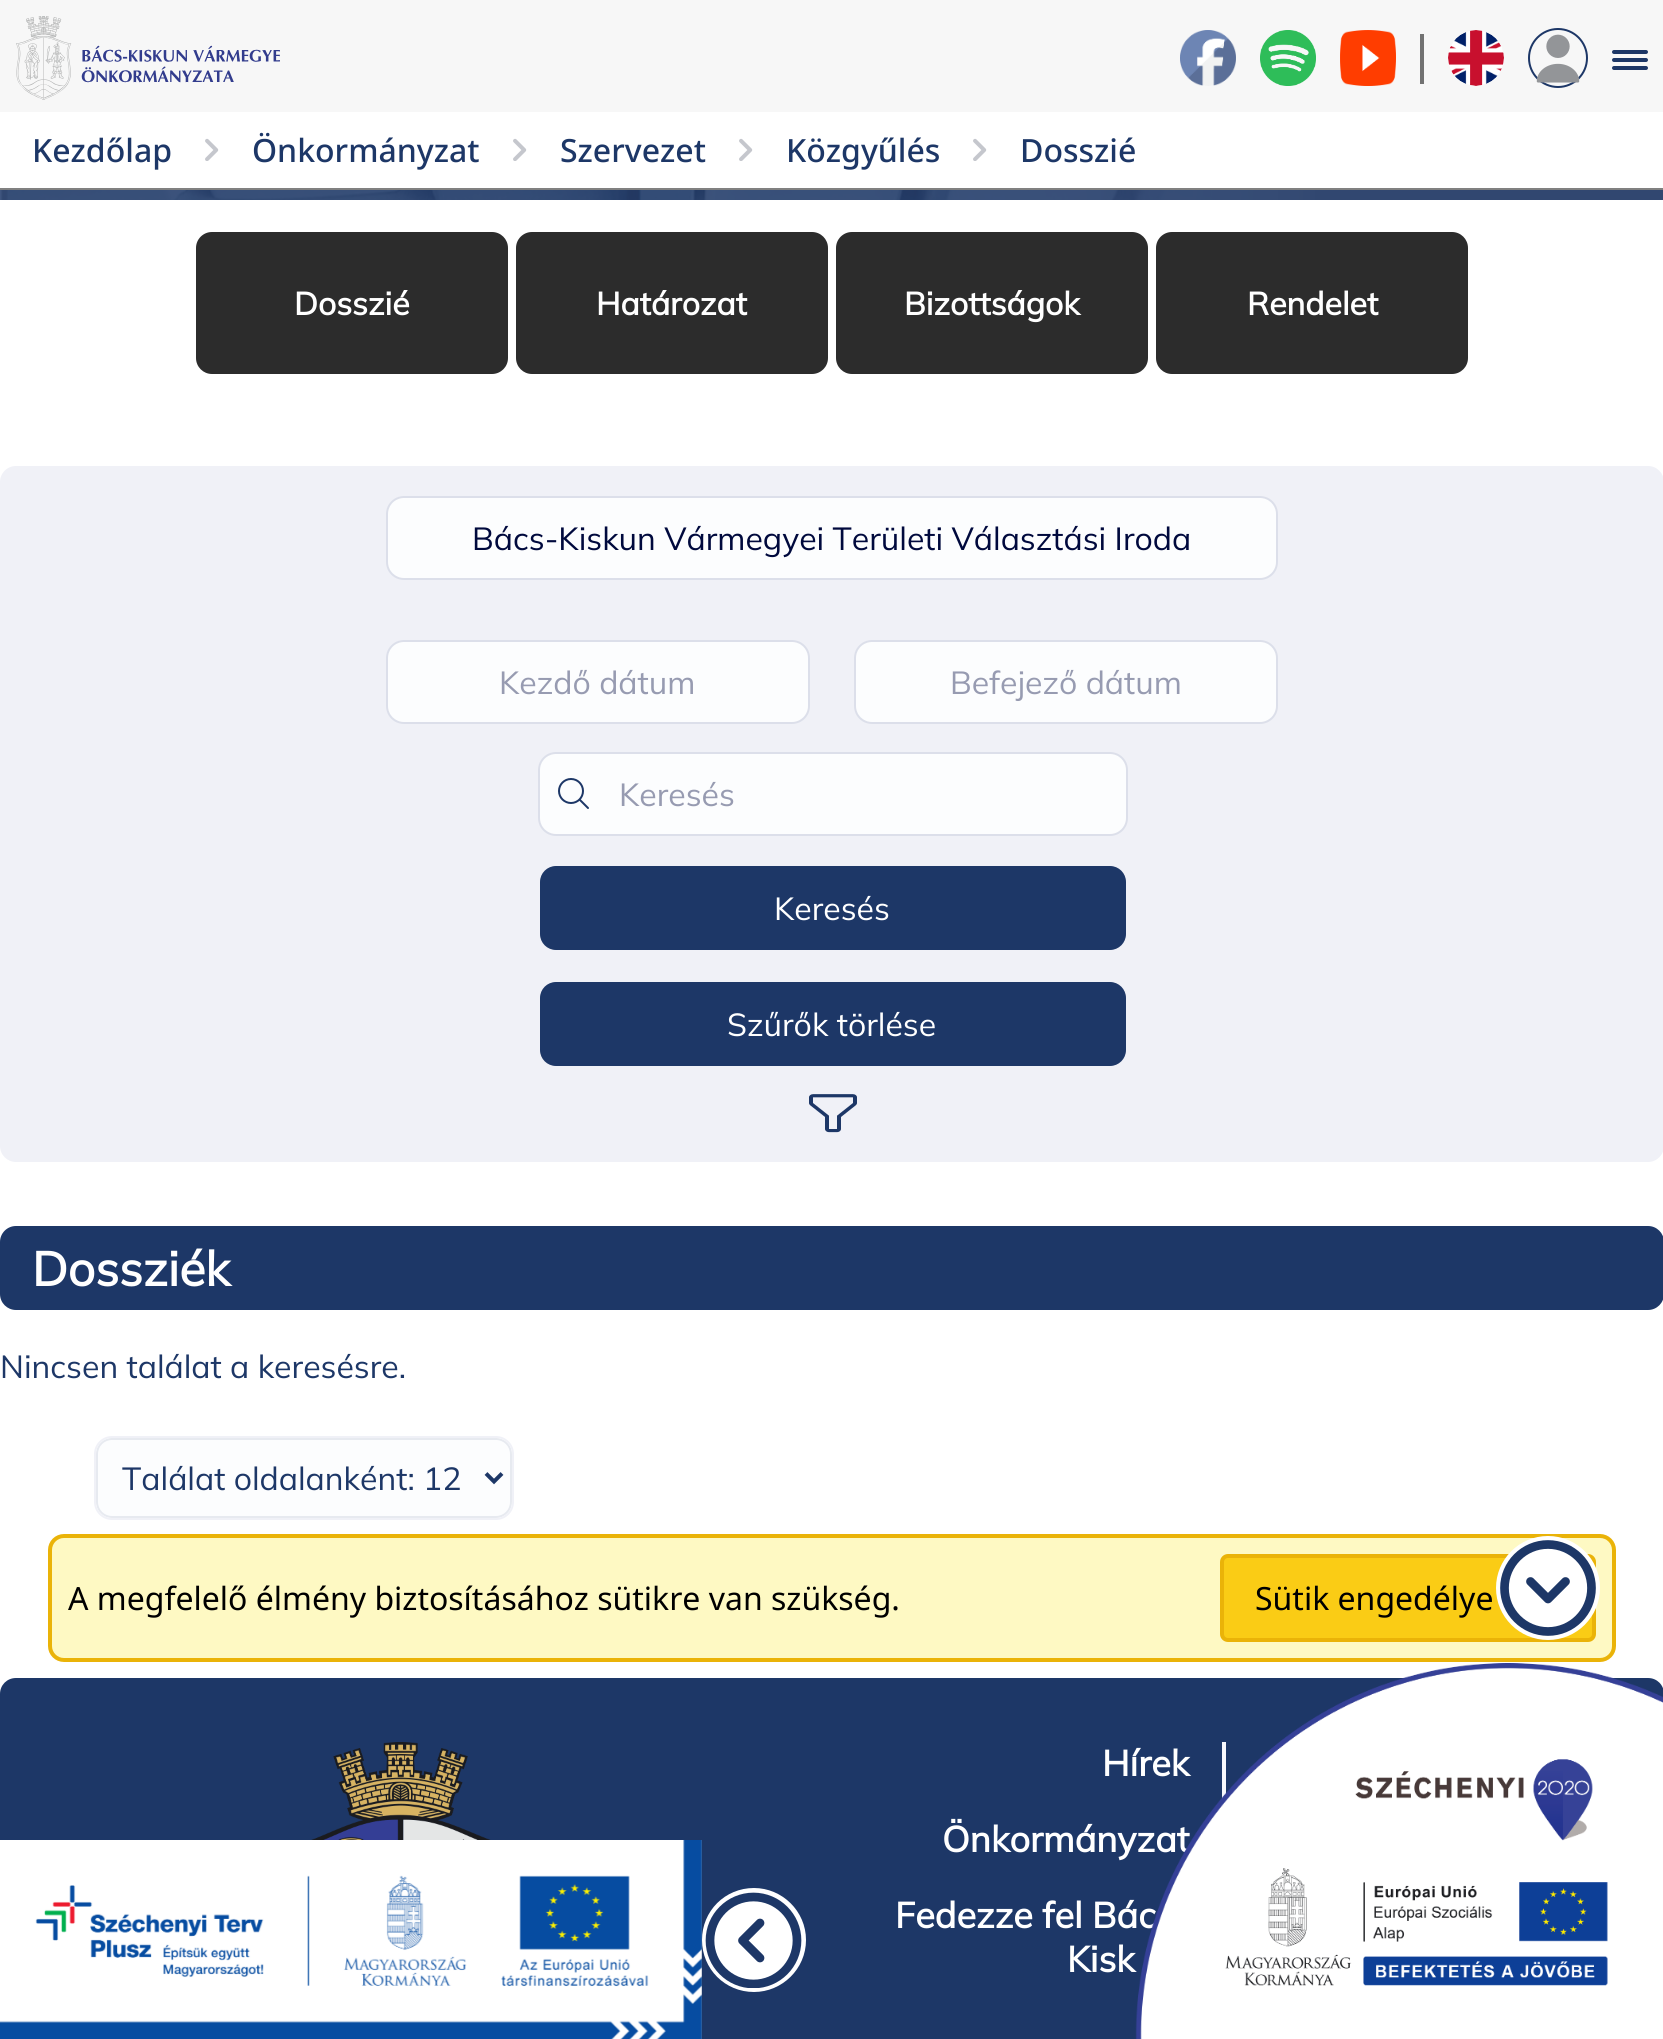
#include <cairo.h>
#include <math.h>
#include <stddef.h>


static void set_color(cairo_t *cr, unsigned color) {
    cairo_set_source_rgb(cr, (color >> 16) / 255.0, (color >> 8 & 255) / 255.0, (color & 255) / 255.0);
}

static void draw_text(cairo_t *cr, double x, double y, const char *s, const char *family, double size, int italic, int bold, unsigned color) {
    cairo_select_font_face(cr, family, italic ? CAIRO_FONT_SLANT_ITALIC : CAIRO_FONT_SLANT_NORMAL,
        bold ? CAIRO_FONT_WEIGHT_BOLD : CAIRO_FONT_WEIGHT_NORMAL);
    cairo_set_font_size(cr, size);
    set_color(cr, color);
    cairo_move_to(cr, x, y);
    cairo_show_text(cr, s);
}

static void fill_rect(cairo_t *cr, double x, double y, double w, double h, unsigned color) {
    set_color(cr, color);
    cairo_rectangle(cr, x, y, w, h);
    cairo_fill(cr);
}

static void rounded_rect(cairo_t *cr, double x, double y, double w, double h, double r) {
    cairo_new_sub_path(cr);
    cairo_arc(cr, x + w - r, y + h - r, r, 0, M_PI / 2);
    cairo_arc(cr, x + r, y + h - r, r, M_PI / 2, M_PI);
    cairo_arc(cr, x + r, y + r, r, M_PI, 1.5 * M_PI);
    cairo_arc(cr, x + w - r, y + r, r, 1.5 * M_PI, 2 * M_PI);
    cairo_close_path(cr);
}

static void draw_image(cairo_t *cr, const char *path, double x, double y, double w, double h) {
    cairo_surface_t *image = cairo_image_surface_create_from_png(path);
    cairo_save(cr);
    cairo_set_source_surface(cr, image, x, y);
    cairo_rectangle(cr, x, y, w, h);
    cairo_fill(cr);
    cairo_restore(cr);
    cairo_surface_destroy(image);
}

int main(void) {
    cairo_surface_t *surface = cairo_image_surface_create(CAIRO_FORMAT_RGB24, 1663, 2039);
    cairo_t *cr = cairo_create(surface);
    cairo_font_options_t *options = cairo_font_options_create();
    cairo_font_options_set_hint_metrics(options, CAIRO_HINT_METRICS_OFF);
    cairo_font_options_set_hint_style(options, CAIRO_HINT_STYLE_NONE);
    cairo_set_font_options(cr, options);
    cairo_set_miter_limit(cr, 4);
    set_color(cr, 0xFFFFFF);
    cairo_paint(cr);
    fill_rect(cr, 0, 0, 1663, 112, 0xF7F7F7);
    draw_image(cr, "assets/img1.png", 16, 16, 264, 84);
    draw_image(cr, "assets/img2.png", 1180, 30, 56, 56);
    draw_image(cr, "assets/img3.png", 1260, 30, 56, 56);
    draw_image(cr, "assets/img4.png", 1340, 30, 56, 56);
    fill_rect(cr, 1420, 34, 4, 50, 0x727272);
    draw_image(cr, "assets/img5.png", 1448, 30, 56, 56);
    cairo_arc(cr, 1558, 58, 29, 0, 2 * M_PI);
    set_color(cr, 0x1D3767);
    cairo_stroke(cr);
    draw_image(cr, "assets/img6.png", 1536, 34, 44, 49);
    rounded_rect(cr, 1612, 50, 36, 4, 2);
    cairo_fill(cr);
    rounded_rect(cr, 1612, 58, 36, 4, 2);
    cairo_fill(cr);
    rounded_rect(cr, 1612, 66, 36, 4, 2);
    cairo_fill(cr);
    fill_rect(cr, 0, 188, 1663, 2, 0x808080);
    draw_text(cr, 32, 162, "Kezdőlap", "Noto Sans Medium", 32, 0, 0, 0x1D3767);
    draw_image(cr, "assets/img7.png", 205, 138, 14, 23);
    draw_text(cr, 252, 162, "Önkormányzat", "Noto Sans Medium", 32, 0, 0, 0x1D3767);
    draw_image(cr, "assets/img7.png", 513, 138, 14, 23);
    draw_text(cr, 560, 162, "Szervezet", "Noto Sans Medium", 32, 0, 0, 0x1D3767);
    draw_image(cr, "assets/img7.png", 739, 138, 14, 23);
    draw_text(cr, 786, 162, "Közgyűlés", "Noto Sans Medium", 32, 0, 0, 0x1D3767);
    draw_image(cr, "assets/img7.png", 973, 138, 14, 23);
    draw_text(cr, 1020, 162, "Dosszié", "Noto Sans Medium", 32, 0, 0, 0x1D3767);
    draw_image(cr, "assets/img8.png", 0, 190, 1663, 10);
    set_color(cr, 0x2C2C2C);
    rounded_rect(cr, 196, 232, 312, 142, 16);
    cairo_fill(cr);
    draw_text(cr, 294, 315, "Dosszié", "Mulish", 32, 0, 1, 0xFFFFFF);
    set_color(cr, 0x2C2C2C);
    rounded_rect(cr, 516, 232, 312, 142, 16);
    cairo_fill(cr);
    draw_text(cr, 596, 315, "Határozat", "Mulish", 32, 0, 1, 0xFFFFFF);
    set_color(cr, 0x2C2C2C);
    rounded_rect(cr, 836, 232, 312, 142, 16);
    cairo_fill(cr);
    draw_text(cr, 904, 315, "Bizottságok", "Mulish", 32, 0, 1, 0xFFFFFF);
    set_color(cr, 0x2C2C2C);
    rounded_rect(cr, 1156, 232, 312, 142, 16);
    cairo_fill(cr);
    draw_text(cr, 1247, 315, "Rendelet", "Mulish", 32, 0, 1, 0xFFFFFF);
    set_color(cr, 0xF0F1F7);
    rounded_rect(cr, 0, 466, 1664, 696, 16);
    cairo_fill(cr);
    set_color(cr, 0xFCFDFE);
    rounded_rect(cr, 388, 498, 888, 80, 16);
    cairo_fill(cr);
    rounded_rect(cr, 387, 497, 890, 82, 17);
    cairo_set_source_rgba(cr, 0.169, 0.259, 0.455, 0.1);
    cairo_stroke(cr);
    draw_text(cr, 472, 550, "Bács-Kiskun Vármegyei Területi Választási Iroda", "Mulish ExtraLight", 32, 0, 0, 0x00093D);
    set_color(cr, 0xFCFDFE);
    rounded_rect(cr, 388, 642, 420, 80, 16);
    cairo_fill(cr);
    rounded_rect(cr, 387, 641, 422, 82, 17);
    cairo_set_source_rgba(cr, 0.169, 0.259, 0.455, 0.1);
    cairo_stroke(cr);
    draw_text(cr, 499, 694, "Kezdő dátum", "Mulish ExtraLight", 32, 0, 0, 0x979BB1);
    set_color(cr, 0xFCFDFE);
    rounded_rect(cr, 856, 642, 420, 80, 16);
    cairo_fill(cr);
    rounded_rect(cr, 855, 641, 422, 82, 17);
    cairo_set_source_rgba(cr, 0.169, 0.259, 0.455, 0.1);
    cairo_stroke(cr);
    draw_text(cr, 950, 694, "Befejező dátum", "Mulish ExtraLight", 32, 0, 0, 0x979BB1);
    set_color(cr, 0xFCFDFE);
    rounded_rect(cr, 540, 754, 586, 80, 16);
    cairo_fill(cr);
    rounded_rect(cr, 539, 753, 588, 82, 17);
    cairo_set_source_rgba(cr, 0.169, 0.259, 0.455, 0.1);
    cairo_stroke(cr);
    cairo_arc(cr, 571, 791, 12, 0, 2 * M_PI);
    set_color(cr, 0x1D3767);
    cairo_stroke(cr);
    cairo_new_path(cr);
    cairo_move_to(cr, 580, 800);
    cairo_line_to(cr, 588, 808);
    cairo_set_line_cap(cr, CAIRO_LINE_CAP_ROUND);
    cairo_stroke(cr);
    draw_text(cr, 619, 806, "Keresés", "Mulish ExtraLight", 32, 0, 0, 0x979BB1);
    set_color(cr, 0x1D3767);
    rounded_rect(cr, 541, 867, 584, 82, 15);
    cairo_fill_preserve(cr);
    cairo_set_line_cap(cr, CAIRO_LINE_CAP_BUTT);
    cairo_stroke(cr);
    draw_text(cr, 774, 920, "Keresés", "Mulish ExtraLight", 32, 0, 0, 0xFFFFFF);
    set_color(cr, 0x1D3767);
    rounded_rect(cr, 541, 983, 584, 82, 15);
    cairo_fill_preserve(cr);
    cairo_stroke(cr);
    draw_text(cr, 727, 1036, "Szűrők törlése", "Mulish ExtraLight", 32, 0, 0, 0xFFFFFF);
    draw_image(cr, "assets/img9.png", 809, 1094, 48, 39);
    set_color(cr, 0x1D3767);
    rounded_rect(cr, 0, 1226, 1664, 84, 16);
    cairo_fill(cr);
    draw_text(cr, 32, 1286, "Dossziék", "Mulish", 48, 0, 1, 0xFFFFFF);
    draw_text(cr, 0, 1378, "Nincsen találat a keresésre.", "Mulish ExtraLight", 32, 0, 0, 0x1D3767);
    set_color(cr, 0xFCFDFE);
    rounded_rect(cr, 97, 1439, 414, 78, 15);
    cairo_fill_preserve(cr);
    set_color(cr, 0xE7EAF0);
    cairo_stroke(cr);
    cairo_new_path(cr);
    cairo_move_to(cr, 486, 1473.5);
    cairo_line_to(cr, 494, 1481.5);
    cairo_line_to(cr, 502, 1473.5);
    set_color(cr, 0x1D3767);
    cairo_set_line_width(cr, 4);
    cairo_stroke(cr);
    rounded_rect(cr, 95, 1437, 418, 82, 17);
    set_color(cr, 0xF0F1F7);
    cairo_set_line_width(cr, 2);
    cairo_stroke(cr);
    draw_text(cr, 122, 1490, "Találat oldalanként: 12", "Mulish ExtraLight", 32, 0, 0, 0x1D3767);
    set_color(cr, 0xFEF9C3);
    rounded_rect(cr, 50, 1536, 1564, 124, 14);
    cairo_fill_preserve(cr);
    set_color(cr, 0xEAB308);
    cairo_set_line_width(cr, 4);
    cairo_stroke(cr);
    set_color(cr, 0xFACC15);
    rounded_rect(cr, 1222, 1556, 372, 84, 6);
    cairo_fill_preserve(cr);
    set_color(cr, 0xEAB308);
    cairo_stroke(cr);
    set_color(cr, 0xFFFFFF);
    cairo_arc(cr, 1548, 1588, 52, 0, 2 * M_PI);
    cairo_fill(cr);
    cairo_new_path(cr);
    cairo_move_to(cr, 1548, 1631.5);
    cairo_curve_to(cr, 1572, 1631.5, 1591.5, 1612, 1591.5, 1588);
    cairo_curve_to(cr, 1591.5, 1564, 1572, 1544.5, 1548, 1544.5);
    cairo_curve_to(cr, 1524, 1544.5, 1504.5, 1564, 1504.5, 1588);
    cairo_curve_to(cr, 1504.5, 1612, 1524, 1631.5, 1548, 1631.5);
    cairo_close_path(cr);
    set_color(cr, 0x1D3767);
    cairo_set_line_width(cr, 8.7);
    cairo_stroke(cr);
    cairo_new_path(cr);
    cairo_move_to(cr, 1530.5, 1581.5);
    cairo_line_to(cr, 1548, 1599);
    cairo_line_to(cr, 1565.5, 1581.5);
    cairo_set_line_cap(cr, CAIRO_LINE_CAP_ROUND);
    cairo_set_line_join(cr, CAIRO_LINE_JOIN_ROUND);
    cairo_stroke(cr);
    cairo_new_path(cr);
    cairo_move_to(cr, 16, 1678);
    cairo_line_to(cr, 1648, 1678);
    cairo_curve_to(cr, 1657, 1678, 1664, 1685, 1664, 1694);
    cairo_line_to(cr, 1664, 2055);
    cairo_line_to(cr, 0, 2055);
    cairo_line_to(cr, 0, 1694);
    cairo_curve_to(cr, 0, 1685, 7, 1678, 16, 1678);
    cairo_close_path(cr);
    cairo_fill(cr);
    fill_rect(cr, 1222, 1742, 2, 57, 0xF7F8FC);
    draw_text(cr, 1102, 1776, "Hírek", "Mulish", 36, 0, 1, 0xFFFFFF);
    draw_text(cr, 942, 1852, "Önkormányzat", "Mulish", 36, 0, 1, 0xFFFFFF);
    draw_text(cr, 895, 1928, "Fedezze fel Bác", "Mulish", 36, 0, 1, 0xFFFFFF);
    draw_text(cr, 1067, 1972, "Kisk", "Mulish", 36, 0, 1, 0xFFFFFF);
    fill_rect(cr, 1224, 1742, 2, 54, 0xF7F8FC);
    draw_image(cr, "assets/img10.png", 1135, 1663, 528, 376);
    draw_text(cr, 68, 1610, "A megfelelő élmény biztosításához sütikre van szükség.", "Noto Sans", 32, 0, 0, 0x000000);
    draw_text(cr, 1255, 1610, "Sütik engedélye", "Noto Sans", 32, 0, 0, 0x000000);
    draw_image(cr, "assets/img11.png", 0, 1840, 702, 199);
    set_color(cr, 0xFFFFFF);
    cairo_new_path(cr);
    cairo_move_to(cr, 806, 1940);
    cairo_curve_to(cr, 806, 1969, 782, 1992, 754, 1992);
    cairo_curve_to(cr, 725, 1992, 702, 1969, 702, 1940);
    cairo_curve_to(cr, 702, 1911, 725, 1888, 754, 1888);
    cairo_curve_to(cr, 782, 1888, 806, 1911, 806, 1940);
    cairo_close_path(cr);
    cairo_fill(cr);
    cairo_save(cr);
    cairo_new_path(cr);
    cairo_move_to(cr, 801.5, 1892);
    cairo_line_to(cr, 801.5, 1988);
    cairo_line_to(cr, 705.5, 1988);
    cairo_line_to(cr, 705.5, 1892);
    cairo_close_path(cr);
    cairo_clip(cr);
    cairo_new_path(cr);
    cairo_move_to(cr, 801.5, 1892);
    cairo_line_to(cr, 801.5, 1988);
    cairo_line_to(cr, 705.5, 1988);
    cairo_line_to(cr, 705.5, 1892);
    cairo_close_path(cr);
    cairo_clip(cr);
    cairo_new_path(cr);
    cairo_move_to(cr, 710, 1940.5);
    cairo_curve_to(cr, 710, 1964.5, 729.5, 1984, 753.5, 1984);
    cairo_curve_to(cr, 777.5, 1984, 797, 1964.5, 797, 1940.5);
    cairo_curve_to(cr, 797, 1916.5, 777.5, 1897, 753.5, 1897);
    cairo_curve_to(cr, 729.5, 1897, 710, 1916.5, 710, 1940.5);
    cairo_close_path(cr);
    set_color(cr, 0x1D3767);
    cairo_set_line_cap(cr, CAIRO_LINE_CAP_BUTT);
    cairo_set_line_join(cr, CAIRO_LINE_JOIN_MITER);
    cairo_stroke(cr);
    cairo_restore(cr);
    cairo_new_path(cr);
    cairo_move_to(cr, 760, 1923);
    cairo_line_to(cr, 742.5, 1940.5);
    cairo_line_to(cr, 760, 1958);
    set_color(cr, 0x1D3767);
    cairo_stroke(cr);
    draw_image(cr, "assets/img12.png", 311, 1742, 180, 98);
    cairo_surface_write_to_png(surface, "output.png");
    cairo_font_options_destroy(options);
    cairo_destroy(cr);
    cairo_surface_destroy(surface);
    return 0;
}
